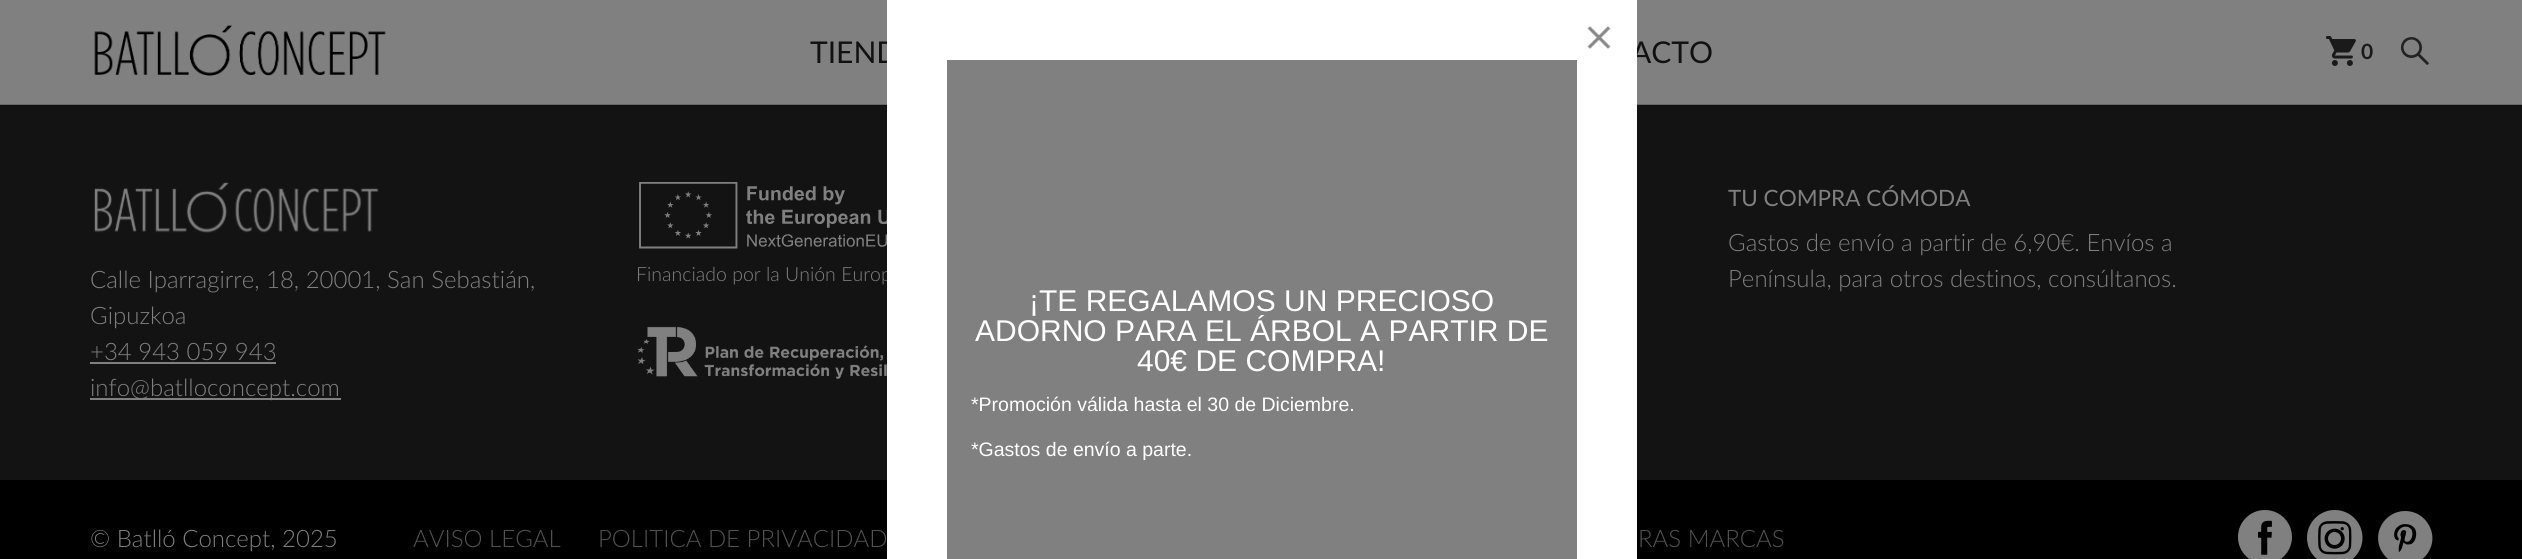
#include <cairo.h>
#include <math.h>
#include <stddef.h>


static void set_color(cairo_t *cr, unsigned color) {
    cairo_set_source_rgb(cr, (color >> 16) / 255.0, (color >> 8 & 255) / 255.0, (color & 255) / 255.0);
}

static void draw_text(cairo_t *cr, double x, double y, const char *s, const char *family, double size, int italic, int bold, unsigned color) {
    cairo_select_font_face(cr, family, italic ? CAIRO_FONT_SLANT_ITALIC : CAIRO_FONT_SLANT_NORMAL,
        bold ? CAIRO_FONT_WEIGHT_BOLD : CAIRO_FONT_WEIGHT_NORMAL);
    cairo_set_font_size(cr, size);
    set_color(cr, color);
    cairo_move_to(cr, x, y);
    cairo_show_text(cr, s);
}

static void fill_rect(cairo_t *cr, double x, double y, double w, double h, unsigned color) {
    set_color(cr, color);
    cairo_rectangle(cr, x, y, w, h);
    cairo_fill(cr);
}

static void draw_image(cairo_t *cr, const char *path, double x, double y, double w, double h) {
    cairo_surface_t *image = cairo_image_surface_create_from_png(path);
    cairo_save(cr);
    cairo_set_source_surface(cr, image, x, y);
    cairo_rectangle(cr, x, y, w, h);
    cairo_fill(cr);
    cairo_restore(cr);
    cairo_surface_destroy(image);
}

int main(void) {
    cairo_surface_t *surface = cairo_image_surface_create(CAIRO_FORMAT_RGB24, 2522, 559);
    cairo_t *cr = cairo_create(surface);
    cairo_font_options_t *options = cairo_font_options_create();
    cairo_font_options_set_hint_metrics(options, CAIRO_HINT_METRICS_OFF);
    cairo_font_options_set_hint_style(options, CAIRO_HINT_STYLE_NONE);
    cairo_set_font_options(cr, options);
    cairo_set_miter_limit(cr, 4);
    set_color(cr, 0x808080);
    cairo_paint(cr);
    fill_rect(cr, 0, 104, 2522, 1, 0x666666);
    draw_image(cr, "assets/img1.png", 94, 25, 292, 51);
    draw_text(cr, 810, 63, "TIEND", "Lato", 30, 0, 0, 0x111111);
    draw_text(cr, 1631, 63, "ACTO", "Lato", 30, 0, 0, 0x111111);
    draw_image(cr, "assets/img2.png", 2325, 36, 31, 30);
    draw_text(cr, 2361, 59, "0", "Lato", 21, 0, 1, 0x1A1A1A);
    draw_image(cr, "assets/img3.png", 2400, 37, 29, 28);
    fill_rect(cr, 0, 106, 2522, 374, 0x131313);
    fill_rect(cr, 0, 105, 2522, 1, 0x0F0F0F);
    draw_image(cr, "assets/img4.png", 94, 182, 285, 51);
    draw_text(cr, 90, 288, "Calle Iparragirre, 18, 20001, San Sebastián,", "Lato Light", 24, 0, 0, 0x808080);
    draw_text(cr, 90, 324, "Gipuzkoa", "Lato Light", 24, 0, 0, 0x808080);
    draw_text(cr, 90, 360, "+34 943 059 943", "Lato Light", 24, 0, 0, 0x808080);
    fill_rect(cr, 90, 362, 186, 2, 0x808080);
    fill_rect(cr, 90, 398, 251, 2, 0x808080);
    draw_text(cr, 90, 396, "info@batlloconcept.com", "Lato Light", 24, 0, 0, 0x808080);
    draw_image(cr, "assets/img5.png", 639, 182, 248, 67);
    draw_text(cr, 636, 281, "Financiado por la Unión Europ", "Lato Light", 19.5, 0, 0, 0x808080);
    draw_image(cr, "assets/img6.png", 637, 326, 250, 53);
    draw_text(cr, 1728, 206, "TU COMPRA CÓMODA", "Lato", 22.5, 0, 0, 0x808080);
    draw_text(cr, 1728, 251, "Gastos de envío a partir de 6,90€. Envíos a", "Lato Light", 24, 0, 0, 0x808080);
    draw_text(cr, 1728, 287, "Península, para otros destinos, consúltanos.", "Lato Light", 24, 0, 0, 0x808080);
    fill_rect(cr, 0, 480, 2522, 79, 0x000000);
    draw_text(cr, 90, 547, "© Batlló Concept, 2025", "Lato Light", 24, 0, 0, 0x808080);
    draw_text(cr, 413, 547, "AVISO LEGAL", "Lato Light", 24, 0, 0, 0x525252);
    draw_text(cr, 598, 547, "POLITICA DE PRIVACIDAD", "Lato Light", 24, 0, 0, 0x525252);
    draw_text(cr, 1638, 547, "RAS MARCAS", "Lato Light", 24, 0, 0, 0x525252);
    draw_image(cr, "assets/img7.png", 2238, 510, 54, 49);
    draw_image(cr, "assets/img8.png", 2307, 510, 56, 49);
    draw_image(cr, "assets/img9.png", 2378, 511, 55, 48);
    fill_rect(cr, 887, 0, 750, 559, 0xFFFFFF);
    draw_image(cr, "assets/img10.png", 1587, 26, 24, 23);
    fill_rect(cr, 947, 60, 630, 499, 0x808080);
    draw_text(cr, 1029, 311, "¡TE REGALAMOS UN PRECIOSO", "Liberation Sans", 30, 0, 0, 0xFFFFFF);
    draw_text(cr, 975, 341, "ADORNO PARA EL ÁRBOL A PARTIR DE", "Liberation Sans", 30, 0, 0, 0xFFFFFF);
    draw_text(cr, 1137, 371, "40€ DE COMPRA!", "Liberation Sans", 30, 0, 0, 0xFFFFFF);
    draw_text(cr, 971, 411, "*Promoción válida hasta el 30 de Diciembre.", "Liberation Sans", 19.5, 0, 0, 0xFFFFFF);
    draw_text(cr, 971, 456, "*Gastos de envío a parte.", "Liberation Sans", 19.5, 0, 0, 0xFFFFFF);
    cairo_surface_write_to_png(surface, "output.png");
    cairo_font_options_destroy(options);
    cairo_destroy(cr);
    cairo_surface_destroy(surface);
    return 0;
}
